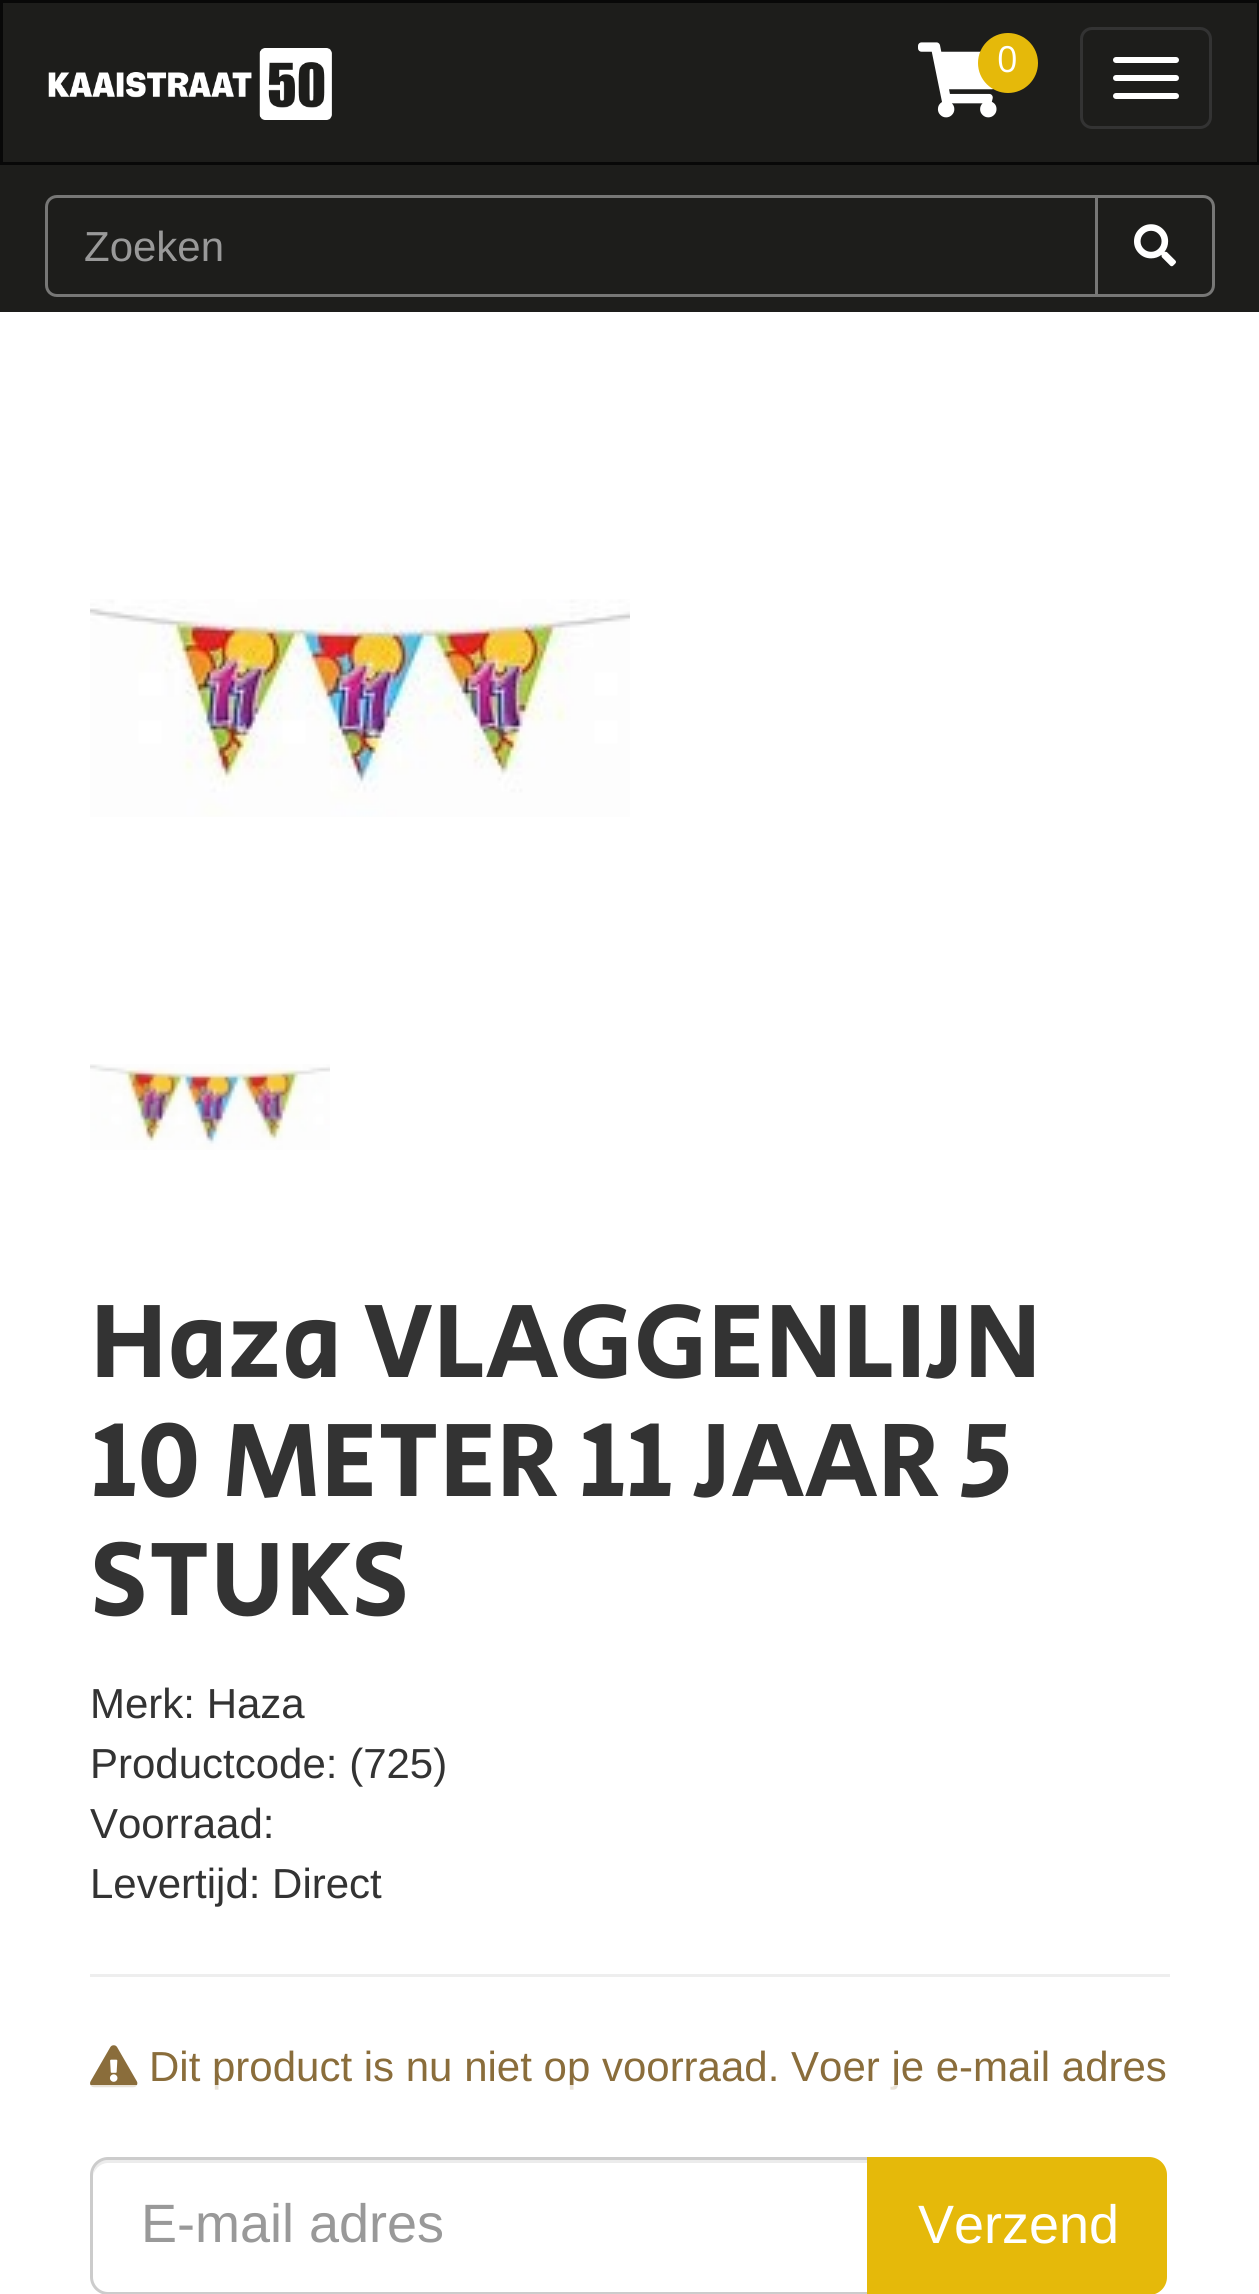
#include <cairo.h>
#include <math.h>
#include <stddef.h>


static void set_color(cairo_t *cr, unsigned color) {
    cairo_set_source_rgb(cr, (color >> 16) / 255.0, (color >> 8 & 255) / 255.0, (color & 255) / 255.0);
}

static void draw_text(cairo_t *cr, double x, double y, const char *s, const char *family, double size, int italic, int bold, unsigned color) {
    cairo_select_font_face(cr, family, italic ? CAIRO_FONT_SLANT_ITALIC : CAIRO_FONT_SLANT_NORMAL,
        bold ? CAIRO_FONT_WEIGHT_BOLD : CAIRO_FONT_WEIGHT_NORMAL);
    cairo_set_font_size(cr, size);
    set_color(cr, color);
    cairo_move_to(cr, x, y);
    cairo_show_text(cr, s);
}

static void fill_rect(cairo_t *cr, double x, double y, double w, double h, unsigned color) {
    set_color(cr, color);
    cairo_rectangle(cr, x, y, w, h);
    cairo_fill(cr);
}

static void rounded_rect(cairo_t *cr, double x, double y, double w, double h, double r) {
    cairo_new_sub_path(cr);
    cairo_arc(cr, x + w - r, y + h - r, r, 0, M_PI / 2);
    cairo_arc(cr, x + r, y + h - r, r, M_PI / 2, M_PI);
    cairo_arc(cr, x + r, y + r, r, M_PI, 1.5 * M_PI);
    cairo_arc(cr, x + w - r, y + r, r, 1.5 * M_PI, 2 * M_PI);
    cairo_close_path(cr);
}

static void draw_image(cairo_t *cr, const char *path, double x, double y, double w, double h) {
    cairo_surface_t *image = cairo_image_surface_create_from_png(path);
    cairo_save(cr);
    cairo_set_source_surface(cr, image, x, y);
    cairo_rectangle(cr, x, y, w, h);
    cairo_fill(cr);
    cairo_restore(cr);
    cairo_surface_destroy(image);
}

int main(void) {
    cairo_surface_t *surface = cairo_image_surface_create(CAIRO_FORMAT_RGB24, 1259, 2294);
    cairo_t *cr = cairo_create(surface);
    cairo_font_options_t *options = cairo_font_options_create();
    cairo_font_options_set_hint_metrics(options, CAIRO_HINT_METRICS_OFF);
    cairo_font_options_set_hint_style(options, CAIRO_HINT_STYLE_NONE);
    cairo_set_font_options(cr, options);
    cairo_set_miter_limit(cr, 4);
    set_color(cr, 0xFFFFFF);
    cairo_paint(cr);
    set_color(cr, 0x1D1D1B);
    cairo_rectangle(cr, 1.5, 1.5, 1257, 162);
    cairo_fill_preserve(cr);
    set_color(cr, 0x080808);
    cairo_set_line_width(cr, 3);
    cairo_stroke(cr);
    draw_image(cr, "assets/img1.png", 48, 48, 284, 72);
    draw_image(cr, "assets/img2.png", 918, 42, 79, 76);
    set_color(cr, 0xE5B90A);
    cairo_arc(cr, 1008, 63, 30, 0, 2 * M_PI);
    cairo_fill(cr);
    draw_text(cr, 997, 72, "0", "Open Sans", 36, 0, 0, 0xFFFFFF);
    rounded_rect(cr, 1081.5, 28.5, 129, 99, 10.5);
    set_color(cr, 0x333333);
    cairo_stroke(cr);
    set_color(cr, 0xFFFFFF);
    rounded_rect(cr, 1113, 57, 66, 6, 3);
    cairo_fill(cr);
    rounded_rect(cr, 1113, 75, 66, 6, 3);
    cairo_fill(cr);
    rounded_rect(cr, 1113, 93, 66, 6, 3);
    cairo_fill(cr);
    fill_rect(cr, 0, 165, 1259, 147, 0x1D1D1B);
    cairo_new_path(cr);
    cairo_move_to(cr, 57, 196.5);
    cairo_line_to(cr, 1096.5, 196.5);
    cairo_line_to(cr, 1096.5, 295.5);
    cairo_line_to(cr, 57, 295.5);
    cairo_curve_to(cr, 51, 295.5, 46.5, 291, 46.5, 285);
    cairo_line_to(cr, 46.5, 207);
    cairo_curve_to(cr, 46.5, 201, 51, 196.5, 57, 196.5);
    cairo_close_path(cr);
    set_color(cr, 0x777776);
    cairo_stroke(cr);
    draw_text(cr, 84, 261, "Zoeken", "Liberation Sans", 42, 0, 0, 0x999999);
    set_color(cr, 0x1D1D1B);
    cairo_new_path(cr);
    cairo_move_to(cr, 1096.5, 196.5);
    cairo_line_to(cr, 1203, 196.5);
    cairo_curve_to(cr, 1209, 196.5, 1213.5, 201, 1213.5, 207);
    cairo_line_to(cr, 1213.5, 285);
    cairo_curve_to(cr, 1213.5, 291, 1209, 295.5, 1203, 295.5);
    cairo_line_to(cr, 1096.5, 295.5);
    cairo_close_path(cr);
    cairo_fill_preserve(cr);
    set_color(cr, 0x777776);
    cairo_stroke(cr);
    draw_image(cr, "assets/img3.png", 1134, 224, 42, 43);
    draw_image(cr, "assets/img4.png", 90, 599, 540, 218);
    draw_image(cr, "assets/img5.png", 90, 1064, 240, 86);
    draw_text(cr, 90, 1377, "Haza VLAGGENLIJN", "Secular One", 108, 0, 0, 0x333333);
    draw_text(cr, 90, 1496, "10 METER 11 JAAR 5", "Secular One", 108, 0, 0, 0x333333);
    draw_text(cr, 90, 1615, "STUKS", "Secular One", 108, 0, 0, 0x333333);
    draw_text(cr, 90, 1718, "Merk: Haza", "Liberation Sans", 42, 0, 0, 0x333333);
    draw_text(cr, 90, 1778, "Productcode: (725)", "Liberation Sans", 42, 0, 0, 0x333333);
    draw_text(cr, 90, 1838, "Voorraad:", "Liberation Sans", 42, 0, 0, 0x333333);
    draw_text(cr, 90, 1898, "Levertijd: Direct", "Liberation Sans", 42, 0, 0, 0x333333);
    fill_rect(cr, 90, 1974, 1080, 3, 0xEEEEEE);
    draw_image(cr, "assets/img6.png", 90, 2045, 48, 43);
    draw_text(cr, 149, 2081, "Dit product is nu niet op voorraad. Voer je e-mail adres", "Liberation Sans", 42, 0, 0, 0x8A6D3B);
    set_color(cr, 0xECECEC);
    cairo_new_path(cr);
    cairo_move_to(cr, 108, 2163);
    cairo_line_to(cr, 867, 2163);
    cairo_line_to(cr, 867, 2160);
    cairo_line_to(cr, 108, 2160);
    cairo_curve_to(cr, 97, 2160, 93, 2169, 93, 2178);
    cairo_curve_to(cr, 93, 2170, 100, 2163, 108, 2163);
    cairo_close_path(cr);
    cairo_fill(cr);
    cairo_new_path(cr);
    cairo_move_to(cr, 108, 2158.5);
    cairo_line_to(cr, 868.5, 2158.5);
    cairo_line_to(cr, 868.5, 2293.5);
    cairo_line_to(cr, 108, 2293.5);
    cairo_curve_to(cr, 99, 2293.5, 91.5, 2286, 91.5, 2277);
    cairo_line_to(cr, 91.5, 2175);
    cairo_curve_to(cr, 91.5, 2166, 99, 2158.5, 108, 2158.5);
    cairo_close_path(cr);
    set_color(cr, 0xCCCCCC);
    cairo_stroke(cr);
    draw_text(cr, 141, 2242, "E-mail adres", "Liberation Sans", 54, 0, 0, 0x999999);
    set_color(cr, 0xE5B90A);
    cairo_new_path(cr);
    cairo_move_to(cr, 867, 2157);
    cairo_line_to(cr, 1149, 2157);
    cairo_curve_to(cr, 1159, 2157, 1167, 2165, 1167, 2175);
    cairo_line_to(cr, 1167, 2277);
    cairo_curve_to(cr, 1167, 2287, 1159, 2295, 1149, 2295);
    cairo_line_to(cr, 867, 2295);
    cairo_close_path(cr);
    cairo_fill(cr);
    draw_text(cr, 918, 2243, "Verzend", "Liberation Sans", 54, 0, 0, 0xFFFFFF);
    cairo_set_source_rgba(cr, 1, 1, 1, 0.8);
    cairo_rectangle(cr, 90, 2085, 808, 5);
    cairo_fill(cr);
    cairo_surface_write_to_png(surface, "output.png");
    cairo_font_options_destroy(options);
    cairo_destroy(cr);
    cairo_surface_destroy(surface);
    return 0;
}
